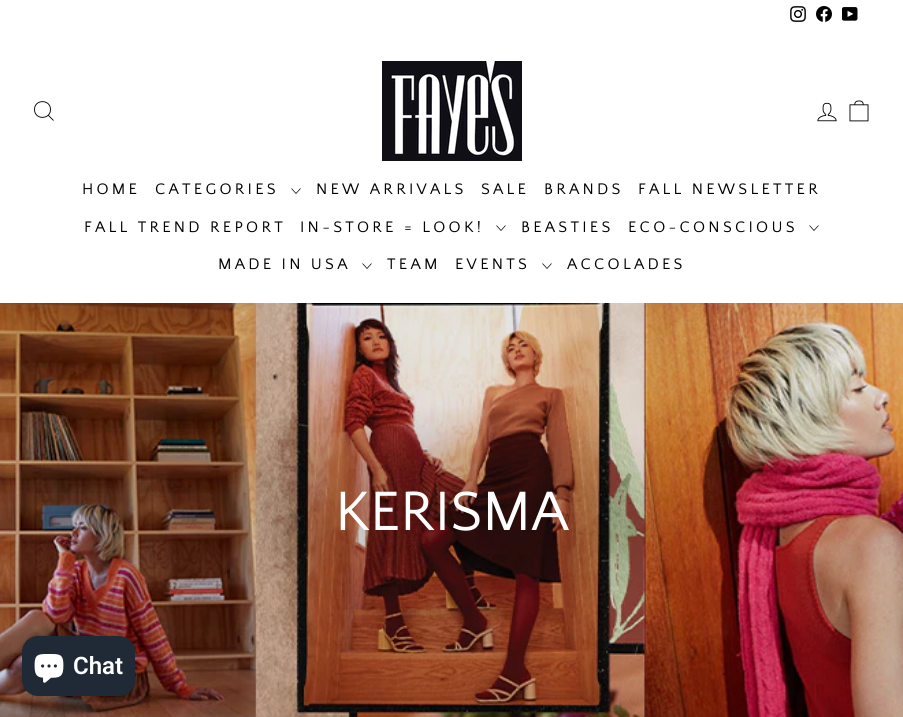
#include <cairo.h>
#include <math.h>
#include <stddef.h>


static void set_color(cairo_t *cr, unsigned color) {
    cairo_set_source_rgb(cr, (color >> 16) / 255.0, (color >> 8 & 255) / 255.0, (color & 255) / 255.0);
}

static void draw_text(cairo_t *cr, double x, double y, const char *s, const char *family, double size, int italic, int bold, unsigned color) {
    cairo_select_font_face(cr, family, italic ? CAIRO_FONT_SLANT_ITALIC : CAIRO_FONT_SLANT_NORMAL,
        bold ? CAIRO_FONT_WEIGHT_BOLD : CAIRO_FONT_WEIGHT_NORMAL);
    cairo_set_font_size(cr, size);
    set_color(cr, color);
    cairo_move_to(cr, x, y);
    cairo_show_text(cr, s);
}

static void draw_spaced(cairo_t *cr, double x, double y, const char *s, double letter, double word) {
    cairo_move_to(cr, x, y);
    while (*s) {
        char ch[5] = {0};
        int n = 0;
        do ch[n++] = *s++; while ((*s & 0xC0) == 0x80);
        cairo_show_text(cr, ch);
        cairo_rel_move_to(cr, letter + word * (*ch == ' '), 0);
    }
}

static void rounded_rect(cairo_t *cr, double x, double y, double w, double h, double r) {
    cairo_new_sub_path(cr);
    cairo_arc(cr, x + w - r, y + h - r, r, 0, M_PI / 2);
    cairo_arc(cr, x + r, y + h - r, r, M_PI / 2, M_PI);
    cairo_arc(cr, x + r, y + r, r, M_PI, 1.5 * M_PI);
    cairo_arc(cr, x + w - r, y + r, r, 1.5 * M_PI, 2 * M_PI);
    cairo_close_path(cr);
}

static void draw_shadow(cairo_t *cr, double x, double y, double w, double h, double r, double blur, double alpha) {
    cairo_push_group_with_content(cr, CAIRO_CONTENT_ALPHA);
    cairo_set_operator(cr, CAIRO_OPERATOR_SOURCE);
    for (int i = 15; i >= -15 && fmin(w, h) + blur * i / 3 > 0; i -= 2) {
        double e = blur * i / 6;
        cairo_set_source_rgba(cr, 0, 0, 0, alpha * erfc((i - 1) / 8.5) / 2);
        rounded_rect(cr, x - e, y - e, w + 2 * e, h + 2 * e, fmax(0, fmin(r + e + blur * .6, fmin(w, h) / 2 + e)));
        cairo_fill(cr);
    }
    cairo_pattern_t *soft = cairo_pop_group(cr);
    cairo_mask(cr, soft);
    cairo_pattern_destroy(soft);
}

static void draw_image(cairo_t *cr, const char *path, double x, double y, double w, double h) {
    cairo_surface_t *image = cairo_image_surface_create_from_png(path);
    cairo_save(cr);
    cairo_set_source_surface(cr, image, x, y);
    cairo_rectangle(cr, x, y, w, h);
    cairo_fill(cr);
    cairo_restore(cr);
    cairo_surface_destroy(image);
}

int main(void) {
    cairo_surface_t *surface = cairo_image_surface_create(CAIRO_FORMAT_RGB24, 903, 717);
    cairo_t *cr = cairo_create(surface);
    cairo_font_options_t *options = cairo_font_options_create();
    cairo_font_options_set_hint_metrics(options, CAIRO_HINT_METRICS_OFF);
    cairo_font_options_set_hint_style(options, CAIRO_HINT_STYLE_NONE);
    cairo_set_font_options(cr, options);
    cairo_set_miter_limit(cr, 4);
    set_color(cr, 0xFFFFFF);
    cairo_paint(cr);
    draw_image(cr, "assets/img1.png", 790, 6, 16, 16);
    draw_image(cr, "assets/img2.png", 816, 6, 16, 16);
    draw_image(cr, "assets/img3.png", 842, 7, 16, 14);
    cairo_new_path(cr);
    cairo_move_to(cr, 50.5, 109.5);
    cairo_curve_to(cr, 50.5, 120, 34.5, 120, 34.5, 109.5);
    cairo_curve_to(cr, 34.5, 99, 50.5, 99, 50.5, 109.5);
    cairo_close_path(cr);
    cairo_move_to(cr, 53.5, 120.5);
    cairo_line_to(cr, 48.5, 115.5);
    set_color(cr, 0x000000);
    cairo_set_line_width(cr, 0.9);
    cairo_stroke(cr);
    draw_image(cr, "assets/img4.png", 382, 61, 140, 100);
    draw_image(cr, "assets/img5.png", 817, 102, 20, 20);
    draw_image(cr, "assets/img6.png", 849, 100, 20, 22);
    cairo_select_font_face(cr, "Quattrocento Sans", CAIRO_FONT_SLANT_NORMAL, CAIRO_FONT_WEIGHT_NORMAL);
    cairo_set_font_size(cr, 16);
    draw_spaced(cr, 82, 194, "HOME", 3.25, 0);
    draw_spaced(cr, 155, 194, "CATEGORIES", 3.25, 0);
    cairo_new_path(cr);
    cairo_move_to(cr, 291.5, 188.5);
    cairo_line_to(cr, 296, 193.5);
    cairo_line_to(cr, 300.5, 188.5);
    cairo_set_line_width(cr, 0.7);
    cairo_stroke(cr);
    draw_spaced(cr, 316, 194, "NEW ARRIVALS", 3.25, 0);
    draw_spaced(cr, 481, 194, "SALE", 3.25, 0);
    draw_spaced(cr, 544, 194, "BRANDS", 3.25, 0);
    draw_spaced(cr, 638, 194, "FALL NEWSLETTER", 3.25, 0);
    draw_spaced(cr, 84, 232, "FALL TREND REPORT", 3.25, 0);
    draw_spaced(cr, 300, 232, "IN-STORE = LOOK!", 3.25, 0);
    cairo_new_path(cr);
    cairo_move_to(cr, 496.5, 225.5);
    cairo_line_to(cr, 501, 230.5);
    cairo_line_to(cr, 505.5, 225.5);
    cairo_stroke(cr);
    draw_spaced(cr, 521, 232, "BEASTIES", 3.25, 0);
    draw_spaced(cr, 628, 232, "ECO-CONSCIOUS", 3.25, 0);
    cairo_new_path(cr);
    cairo_move_to(cr, 809.5, 225.5);
    cairo_line_to(cr, 814, 230.5);
    cairo_line_to(cr, 818.5, 225.5);
    cairo_stroke(cr);
    draw_spaced(cr, 218, 269, "MADE IN USA", 3.25, 0);
    cairo_new_path(cr);
    cairo_move_to(cr, 362.5, 263.5);
    cairo_line_to(cr, 367, 268.5);
    cairo_line_to(cr, 371.5, 263.5);
    cairo_stroke(cr);
    draw_spaced(cr, 387, 269, "TEAM", 3.25, 0);
    draw_spaced(cr, 455, 269, "EVENTS", 3.25, 0);
    cairo_new_path(cr);
    cairo_move_to(cr, 542.5, 263.5);
    cairo_line_to(cr, 547, 268.5);
    cairo_line_to(cr, 551.5, 263.5);
    cairo_stroke(cr);
    draw_spaced(cr, 567, 269, "ACCOLADES", 3.25, 0);
    draw_image(cr, "assets/img7.png", 0, 303, 903, 414);
    draw_text(cr, 335, 530, "KERISMA", "Quattrocento Sans", 58, 0, 0, 0xFFFFFF);
    set_color(cr, 0x000000);
    draw_shadow(cr, 22, 636, 113, 60, 16, 2.5, 0.15);
    set_color(cr, 0x202A36);
    rounded_rect(cr, 22, 636, 113, 60, 16);
    cairo_fill(cr);
    draw_image(cr, "assets/img8.png", 34, 654, 30, 29);
    draw_text(cr, 73, 674, "Chat", "Roboto SemiBold", 24, 0, 0, 0xFFFFFF);
    cairo_surface_write_to_png(surface, "output.png");
    cairo_font_options_destroy(options);
    cairo_destroy(cr);
    cairo_surface_destroy(surface);
    return 0;
}
